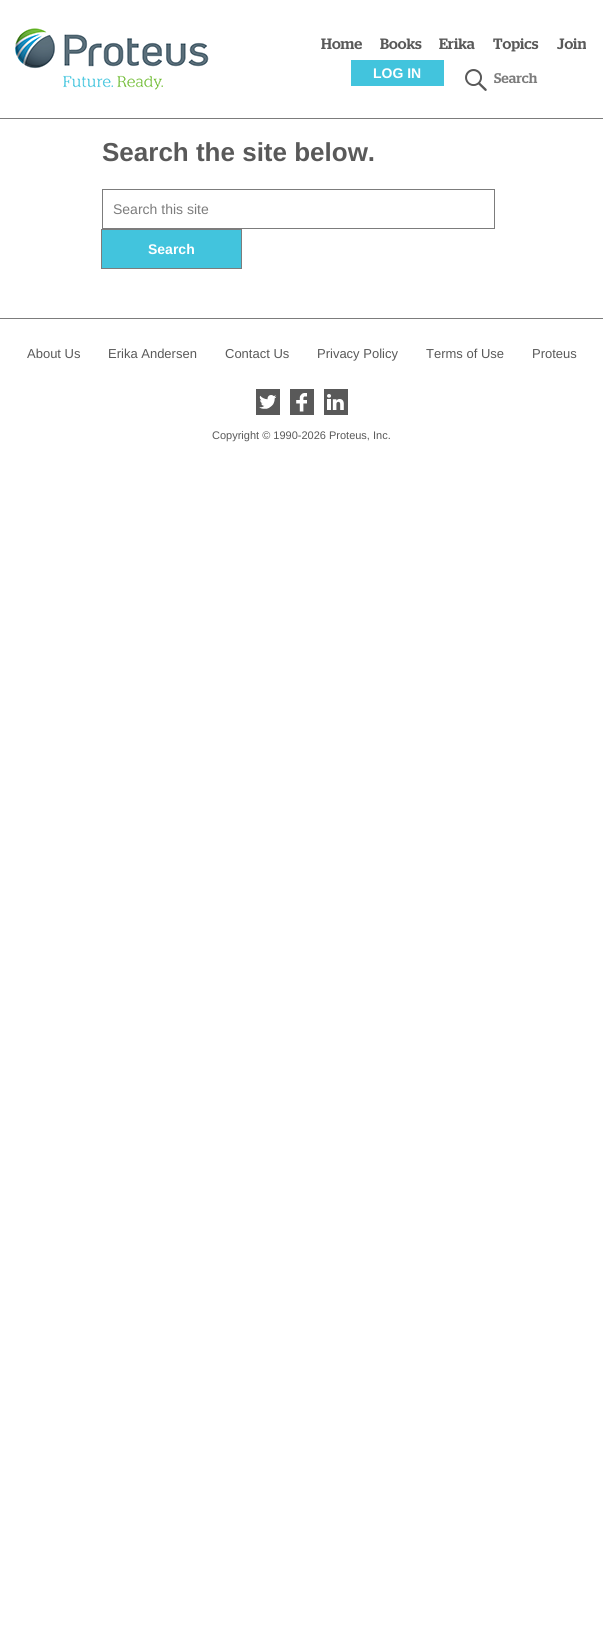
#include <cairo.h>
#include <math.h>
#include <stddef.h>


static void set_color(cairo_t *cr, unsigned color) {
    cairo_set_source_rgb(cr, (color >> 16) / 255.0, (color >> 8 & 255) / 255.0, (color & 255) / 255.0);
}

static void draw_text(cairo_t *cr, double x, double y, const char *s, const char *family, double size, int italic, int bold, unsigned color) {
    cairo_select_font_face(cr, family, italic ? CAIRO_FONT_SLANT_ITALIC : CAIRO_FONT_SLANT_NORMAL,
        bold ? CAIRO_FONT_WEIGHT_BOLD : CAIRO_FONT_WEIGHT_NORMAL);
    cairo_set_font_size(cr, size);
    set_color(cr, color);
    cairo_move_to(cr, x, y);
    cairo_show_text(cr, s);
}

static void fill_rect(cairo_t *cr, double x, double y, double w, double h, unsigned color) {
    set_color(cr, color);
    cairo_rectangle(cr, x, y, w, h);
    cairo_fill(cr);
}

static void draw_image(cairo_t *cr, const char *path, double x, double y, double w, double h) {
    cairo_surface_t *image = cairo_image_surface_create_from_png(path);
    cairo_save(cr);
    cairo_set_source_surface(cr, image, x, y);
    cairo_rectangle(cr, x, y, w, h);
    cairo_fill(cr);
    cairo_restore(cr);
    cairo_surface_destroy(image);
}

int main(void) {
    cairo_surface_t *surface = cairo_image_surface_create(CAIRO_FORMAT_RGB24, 603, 1650);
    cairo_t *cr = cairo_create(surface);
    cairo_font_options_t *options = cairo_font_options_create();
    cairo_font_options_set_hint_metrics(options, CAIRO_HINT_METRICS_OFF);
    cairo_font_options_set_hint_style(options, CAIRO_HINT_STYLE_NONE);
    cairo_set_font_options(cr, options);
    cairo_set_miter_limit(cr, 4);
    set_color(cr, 0xFFFFFF);
    cairo_paint(cr);
    draw_image(cr, "assets/img1.png", 15, 28, 194, 62);
    draw_text(cr, 321, 49, "Home", "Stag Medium", 15, 0, 0, 0x595959);
    draw_text(cr, 380, 49, "Books", "Stag Medium", 15, 0, 0, 0x595959);
    draw_text(cr, 439, 49, "Erika", "Stag Medium", 15, 0, 0, 0x595959);
    draw_text(cr, 493, 49, "Topics", "Stag Medium", 15, 0, 0, 0x595959);
    draw_text(cr, 557, 49, "Join", "Stag Medium", 15, 0, 0, 0x595959);
    fill_rect(cr, 351, 60, 93, 26, 0x42C4DD);
    draw_text(cr, 373, 78, "LOG IN", "Liberation Sans", 14, 0, 1, 0xFFFFFF);
    draw_image(cr, "assets/img2.png", 465, 69, 22, 22);
    draw_text(cr, 494, 83, "Search", "Stag Medium", 14, 0, 0, 0x7C7C7C);
    fill_rect(cr, 0, 118, 603, 1, 0x7C7C7C);
    draw_text(cr, 102, 161, "Search the site below.", "Liberation Sans", 26, 0, 1, 0x595959);
    cairo_rectangle(cr, 102.5, 189.5, 392, 39);
    set_color(cr, 0x7C7C7C);
    cairo_set_line_width(cr, 1);
    cairo_stroke(cr);
    draw_text(cr, 113, 214, "Search this site", "Liberation Sans", 14, 0, 0, 0x7C7C7C);
    set_color(cr, 0x42C4DD);
    cairo_rectangle(cr, 101.5, 229.5, 140, 39);
    cairo_fill_preserve(cr);
    set_color(cr, 0x7C7C7C);
    cairo_stroke(cr);
    draw_text(cr, 148, 254, "Search", "Liberation Sans", 14, 0, 1, 0xFFFFFF);
    fill_rect(cr, 0, 318, 603, 1, 0x7C7C7C);
    draw_text(cr, 27, 358, "About Us", "Liberation Sans", 13, 0, 0, 0x595959);
    draw_text(cr, 108, 358, "Erika Andersen", "Liberation Sans", 13, 0, 0, 0x595959);
    draw_text(cr, 225, 358, "Contact Us", "Liberation Sans", 13, 0, 0, 0x595959);
    draw_text(cr, 317, 358, "Privacy Policy", "Liberation Sans", 13, 0, 0, 0x595959);
    draw_text(cr, 426, 358, "Terms of Use", "Liberation Sans", 13, 0, 0, 0x595959);
    draw_text(cr, 532, 358, "Proteus", "Liberation Sans", 13, 0, 0, 0x595959);
    fill_rect(cr, 256, 389, 24, 26, 0x595959);
    draw_image(cr, "assets/img3.png", 259, 395, 18, 14);
    fill_rect(cr, 290, 389, 24, 26, 0x595959);
    draw_image(cr, "assets/img4.png", 296, 393, 11, 19);
    fill_rect(cr, 324, 389, 24, 26, 0x595959);
    draw_image(cr, "assets/img5.png", 327, 394, 17, 16);
    draw_text(cr, 212, 439, "Copyright © 1990-2026 Proteus, Inc.", "Liberation Sans", 11, 0, 0, 0x595959);
    cairo_surface_write_to_png(surface, "output.png");
    cairo_font_options_destroy(options);
    cairo_destroy(cr);
    cairo_surface_destroy(surface);
    return 0;
}
